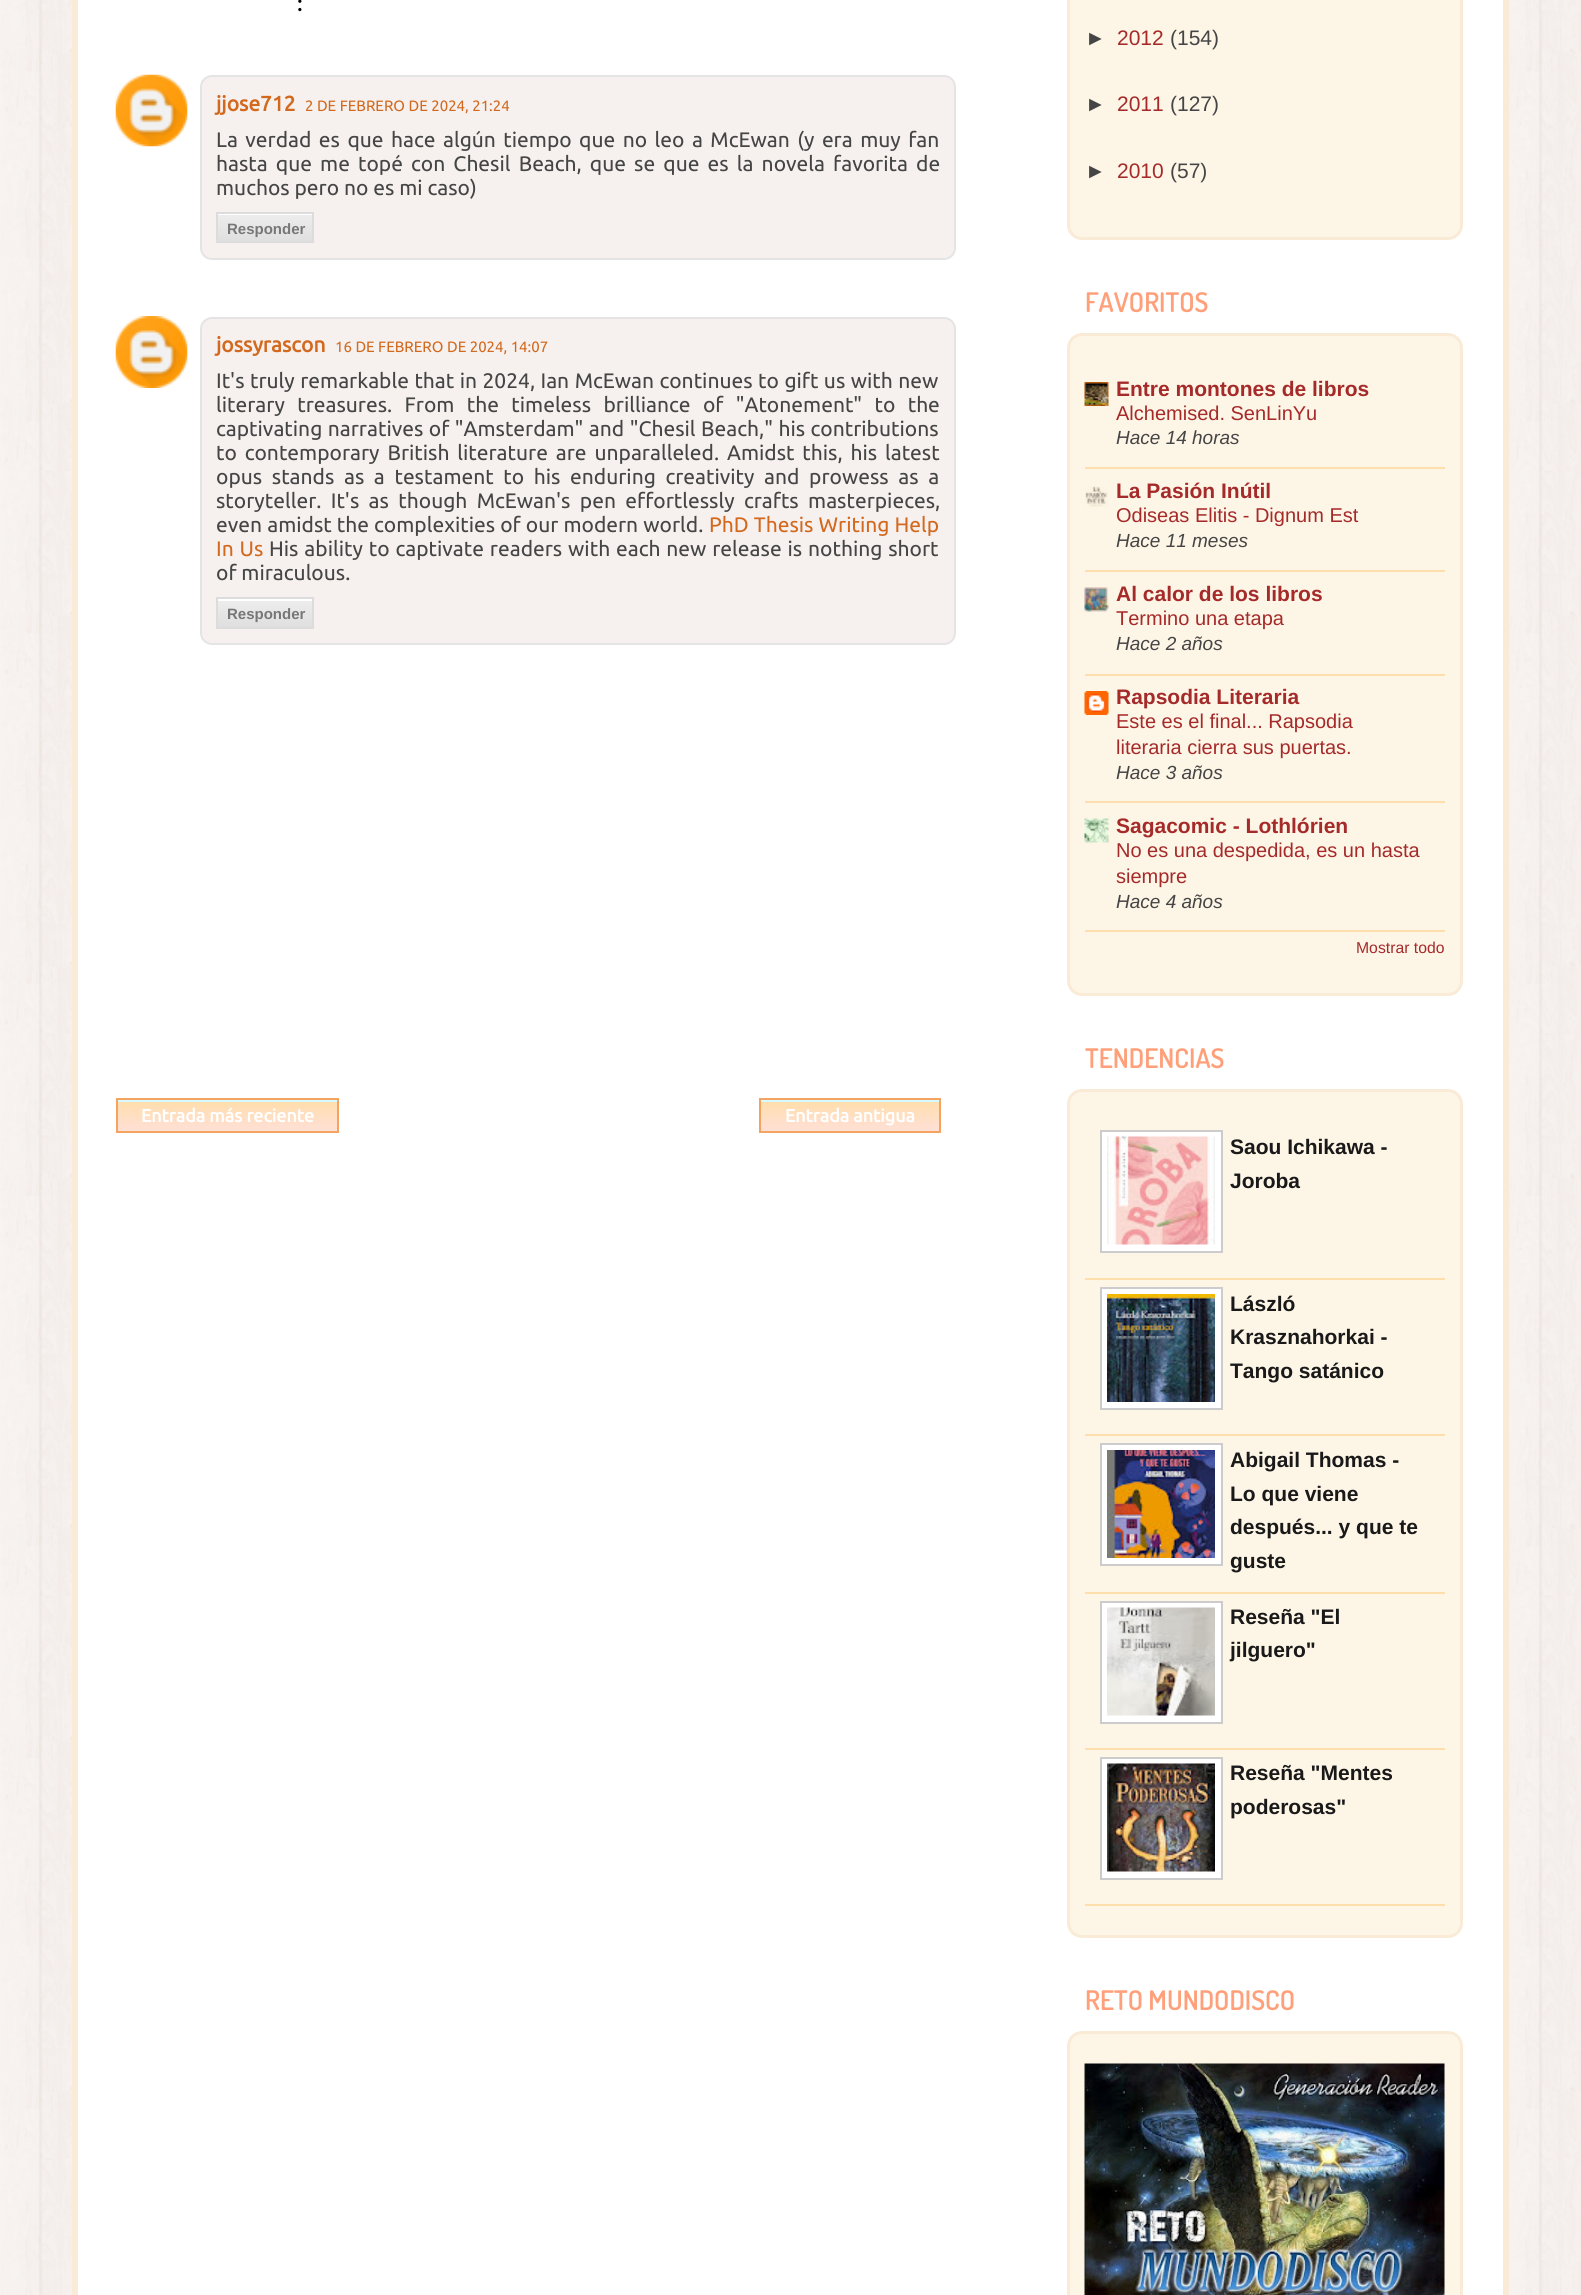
#include <cairo.h>
#include <math.h>
#include <stddef.h>


static void set_color(cairo_t *cr, unsigned color) {
    cairo_set_source_rgb(cr, (color >> 16) / 255.0, (color >> 8 & 255) / 255.0, (color & 255) / 255.0);
}

static void draw_text(cairo_t *cr, double x, double y, const char *s, const char *family, double size, int italic, int bold, unsigned color) {
    cairo_select_font_face(cr, family, italic ? CAIRO_FONT_SLANT_ITALIC : CAIRO_FONT_SLANT_NORMAL,
        bold ? CAIRO_FONT_WEIGHT_BOLD : CAIRO_FONT_WEIGHT_NORMAL);
    cairo_set_font_size(cr, size);
    set_color(cr, color);
    cairo_move_to(cr, x, y);
    cairo_show_text(cr, s);
}

static void draw_spaced(cairo_t *cr, double x, double y, const char *s, double letter, double word) {
    cairo_move_to(cr, x, y);
    while (*s) {
        char ch[5] = {0};
        int n = 0;
        do ch[n++] = *s++; while ((*s & 0xC0) == 0x80);
        cairo_show_text(cr, ch);
        cairo_rel_move_to(cr, letter + word * (*ch == ' '), 0);
    }
}

static void fill_rect(cairo_t *cr, double x, double y, double w, double h, unsigned color) {
    set_color(cr, color);
    cairo_rectangle(cr, x, y, w, h);
    cairo_fill(cr);
}

static void rounded_rect(cairo_t *cr, double x, double y, double w, double h, double r) {
    cairo_new_sub_path(cr);
    cairo_arc(cr, x + w - r, y + h - r, r, 0, M_PI / 2);
    cairo_arc(cr, x + r, y + h - r, r, M_PI / 2, M_PI);
    cairo_arc(cr, x + r, y + r, r, M_PI, 1.5 * M_PI);
    cairo_arc(cr, x + w - r, y + r, r, 1.5 * M_PI, 2 * M_PI);
    cairo_close_path(cr);
}

static void draw_image(cairo_t *cr, const char *path, double x, double y, double w, double h) {
    cairo_surface_t *image = cairo_image_surface_create_from_png(path);
    cairo_save(cr);
    cairo_set_source_surface(cr, image, x, y);
    cairo_rectangle(cr, x, y, w, h);
    cairo_fill(cr);
    cairo_restore(cr);
    cairo_surface_destroy(image);
}

int main(void) {
    cairo_surface_t *surface = cairo_image_surface_create(CAIRO_FORMAT_RGB24, 1581, 2295);
    cairo_t *cr = cairo_create(surface);
    cairo_font_options_t *options = cairo_font_options_create();
    cairo_font_options_set_hint_metrics(options, CAIRO_HINT_METRICS_OFF);
    cairo_font_options_set_hint_style(options, CAIRO_HINT_STYLE_NONE);
    cairo_set_font_options(cr, options);
    cairo_set_miter_limit(cr, 4);
    cairo_pattern_t *gradient;
    set_color(cr, 0xFFFFFF);
    cairo_paint(cr);
    draw_image(cr, "assets/img1.png", 0, 0, 1581, 2295);
    fill_rect(cr, 78, 0, 1425, 2295, 0xFFFFFF);
    fill_rect(cr, 1503, 0, 6, 2295, 0xFAEBD7);
    fill_rect(cr, 72, 0, 6, 2295, 0xFAEBD7);
    draw_text(cr, 297, 11, ":", "Dosis SemiBold", 27, 0, 0, 0x000000);
    draw_image(cr, "assets/img2.png", 115, 74, 73, 73);
    set_color(cr, 0xF6F1EF);
    rounded_rect(cr, 201, 76, 754, 183, 11);
    cairo_fill_preserve(cr);
    set_color(cr, 0xE4E4E4);
    cairo_stroke(cr);
    draw_text(cr, 216, 111, "jjose712", "Ubuntu", 21, 0, 1, 0xD2691E);
    draw_text(cr, 305, 111, "2 DE FEBRERO DE 2024, 21:24", "Ubuntu", 15, 0, 0, 0xD2691E);
    cairo_set_font_size(cr, 21);
    set_color(cr, 0x454545);
    draw_spaced(cr, 216, 147, "La verdad es que hace algún tiempo que no leo a McEwan (y era muy fan", 0, 2.6);
    draw_spaced(cr, 216, 171, "hasta que me topé con Chesil Beach, que se que es la novela favorita de", 0, 3.25);
    draw_text(cr, 216, 195, "muchos pero no es mi caso)", "Ubuntu", 21, 0, 0, 0x454545);
    gradient = cairo_pattern_create_linear(218, 213, 218, 242);
    cairo_pattern_add_color_stop_rgba(gradient, 0.05, 0.929, 0.929, 0.929, 1);
    cairo_pattern_add_color_stop_rgba(gradient, 1, 0.875, 0.875, 0.875, 1);
    cairo_set_source(cr, gradient);
    cairo_pattern_destroy(gradient);
    cairo_rectangle(cr, 218, 215, 94, 26);
    cairo_fill(cr);
    fill_rect(cr, 218, 214, 94, 1, 0xFFFFFF);
    cairo_rectangle(cr, 217, 213, 96, 29);
    set_color(cr, 0xDCDCDC);
    cairo_stroke(cr);
    draw_text(cr, 227, 234, "Responder", "Liberation Sans", 15, 0, 1, 0x777777);
    draw_image(cr, "assets/img3.png", 115, 316, 73, 72);
    set_color(cr, 0xF6F1EF);
    rounded_rect(cr, 201, 318, 754, 326, 11);
    cairo_fill_preserve(cr);
    set_color(cr, 0xE4E4E4);
    cairo_stroke(cr);
    draw_text(cr, 216, 352, "jossyrascon", "Ubuntu", 21, 0, 1, 0xD2691E);
    draw_text(cr, 335, 352, "16 DE FEBRERO DE 2024, 14:07", "Ubuntu", 15, 0, 0, 0xD2691E);
    cairo_set_font_size(cr, 21);
    set_color(cr, 0x454545);
    draw_spaced(cr, 216, 388, "It's truly remarkable that in 2024, Ian McEwan continues to gift us with new", 0, 0.6);
    draw_spaced(cr, 216, 412, "literary treasures. From the timeless brilliance of \"Atonement\" to the", 0, 7.5);
    draw_spaced(cr, 216, 436, "captivating narratives of \"Amsterdam\" and \"Chesil Beach,\" his contributions", 0, 0.6);
    draw_spaced(cr, 216, 460, "to contemporary British literature are unparalleled. Amidst this, his latest", 0, 3);
    draw_spaced(cr, 216, 484, "opus stands as a testament to his enduring creativity and prowess as a", 0, 4.75);
    draw_spaced(cr, 216, 508, "storyteller. It's as though McEwan's pen effortlessly crafts masterpieces,", 0, 4.5);
    draw_spaced(cr, 216, 532, "even amidst the complexities of our modern world.", 0, 0.25);
    set_color(cr, 0xD2691E);
    draw_spaced(cr, 709, 532, "PhD Thesis Writing Help", 0, 0.25);
    draw_spaced(cr, 216, 556, "In Us", 0, 1);
    set_color(cr, 0x454545);
    draw_spaced(cr, 269, 556, "His ability to captivate readers with each new release is nothing short", 0, 1);
    draw_text(cr, 216, 580, "of miraculous.", "Ubuntu", 21, 0, 0, 0x454545);
    gradient = cairo_pattern_create_linear(218, 599, 218, 627);
    cairo_pattern_add_color_stop_rgba(gradient, 0.05, 0.929, 0.929, 0.929, 1);
    cairo_pattern_add_color_stop_rgba(gradient, 1, 0.875, 0.875, 0.875, 1);
    cairo_set_source(cr, gradient);
    cairo_pattern_destroy(gradient);
    cairo_rectangle(cr, 218, 601, 94, 26);
    cairo_fill(cr);
    fill_rect(cr, 218, 599, 94, 2, 0xFFFFFF);
    cairo_rectangle(cr, 217, 598, 96, 30);
    set_color(cr, 0xDCDCDC);
    cairo_stroke(cr);
    draw_text(cr, 227, 619, "Responder", "Liberation Sans", 15, 0, 1, 0x777777);
    gradient = cairo_pattern_create_linear(117, 1100, 117, 1131);
    cairo_pattern_add_color_stop_rgba(gradient, 0.05, 1, 0.871, 0.678, 1);
    cairo_pattern_add_color_stop_rgba(gradient, 1, 1, 0.878, 0.839, 1);
    cairo_set_source(cr, gradient);
    cairo_pattern_destroy(gradient);
    cairo_rectangle(cr, 118, 1102, 219, 29);
    cairo_fill(cr);
    fill_rect(cr, 117, 1100, 221, 2, 0xD6FAFF);
    cairo_rectangle(cr, 117, 1099, 221, 33);
    set_color(cr, 0xF4A460);
    cairo_stroke(cr);
    draw_text(cr, 141, 1122, "Entrada más reciente", "Ubuntu", 18, 0, 1, 0xFFFFFF);
    gradient = cairo_pattern_create_linear(761, 1100, 761, 1131);
    cairo_pattern_add_color_stop_rgba(gradient, 0.05, 1, 0.871, 0.678, 1);
    cairo_pattern_add_color_stop_rgba(gradient, 1, 1, 0.878, 0.839, 1);
    cairo_set_source(cr, gradient);
    cairo_pattern_destroy(gradient);
    cairo_rectangle(cr, 761, 1102, 178, 29);
    cairo_fill(cr);
    fill_rect(cr, 761, 1100, 178, 2, 0xD6FAFF);
    cairo_rectangle(cr, 760, 1099, 180, 33);
    set_color(cr, 0xF4A460);
    cairo_stroke(cr);
    draw_text(cr, 785, 1122, "Entrada antigua", "Ubuntu", 18, 0, 1, 0xFFFFFF);
    set_color(cr, 0xFDF5E6);
    rounded_rect(cr, 1068.5, -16.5, 393, 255, 13.5);
    cairo_fill_preserve(cr);
    set_color(cr, 0xFAEBD7);
    cairo_set_line_width(cr, 3);
    cairo_stroke(cr);
    draw_text(cr, 1085, 45, "►", "Liberation Sans", 21, 0, 0, 0x454545);
    draw_text(cr, 1117, 45, "2012", "Liberation Sans", 21, 0, 0, 0xA52A2A);
    draw_text(cr, 1170, 45, "(154)", "Liberation Sans", 21, 0, 0, 0x454545);
    draw_text(cr, 1085, 111, "►", "Liberation Sans", 21, 0, 0, 0x454545);
    draw_text(cr, 1117, 111, "2011", "Liberation Sans", 21, 0, 0, 0xA52A2A);
    draw_text(cr, 1170, 111, "(127)", "Liberation Sans", 21, 0, 0, 0x454545);
    draw_text(cr, 1085, 178, "►", "Liberation Sans", 21, 0, 0, 0x454545);
    draw_text(cr, 1117, 178, "2010", "Liberation Sans", 21, 0, 0, 0xA52A2A);
    draw_text(cr, 1170, 178, "(57)", "Liberation Sans", 21, 0, 0, 0x454545);
    draw_text(cr, 1085, 312, "FAVORITOS", "Dosis SemiBold", 27, 0, 0, 0xFFA07A);
    set_color(cr, 0xFDF5E6);
    rounded_rect(cr, 1068.5, 334.5, 393, 660, 13.5);
    cairo_fill_preserve(cr);
    set_color(cr, 0xFAEBD7);
    cairo_stroke(cr);
    fill_rect(cr, 1085, 467, 360, 2, 0xFFDEAD);
    draw_image(cr, "assets/img4.png", 1084, 382, 25, 24);
    draw_text(cr, 1116, 396, "Entre montones de libros", "Liberation Sans", 21, 0, 1, 0xA52A2A);
    draw_text(cr, 1116, 420, "Alchemised. SenLinYu", "Liberation Sans", 20, 0, 0, 0xA52A2A);
    draw_text(cr, 1116, 444, "Hace 14 horas", "Liberation Sans", 19, 1, 0, 0x454545);
    fill_rect(cr, 1085, 570, 360, 2, 0xFFDEAD);
    draw_image(cr, "assets/img5.png", 1085, 486, 23, 21);
    draw_text(cr, 1116, 498, "La Pasión Inútil", "Liberation Sans", 21, 0, 1, 0xA52A2A);
    draw_text(cr, 1116, 522, "Odiseas Elitis - Dignum Est", "Liberation Sans", 20, 0, 0, 0xA52A2A);
    draw_text(cr, 1116, 547, "Hace 11 meses", "Liberation Sans", 19, 1, 0, 0x454545);
    fill_rect(cr, 1085, 674, 360, 2, 0xFFDEAD);
    draw_image(cr, "assets/img6.png", 1084, 587, 25, 25);
    draw_text(cr, 1116, 601, "Al calor de los libros", "Liberation Sans", 21, 0, 1, 0xA52A2A);
    draw_text(cr, 1116, 625, "Termino una etapa", "Liberation Sans", 20, 0, 0, 0xA52A2A);
    draw_text(cr, 1116, 650, "Hace 2 años", "Liberation Sans", 19, 1, 0, 0x454545);
    fill_rect(cr, 1085, 801, 360, 2, 0xFFDEAD);
    draw_image(cr, "assets/img7.png", 1084, 691, 25, 24);
    draw_text(cr, 1116, 704, "Rapsodia Literaria", "Liberation Sans", 21, 0, 1, 0xA52A2A);
    draw_text(cr, 1116, 728, "Este es el final... Rapsodia", "Liberation Sans", 20, 0, 0, 0xA52A2A);
    draw_text(cr, 1116, 754, "literaria cierra sus puertas.", "Liberation Sans", 20, 0, 0, 0xA52A2A);
    draw_text(cr, 1116, 779, "Hace 3 años", "Liberation Sans", 19, 1, 0, 0x454545);
    fill_rect(cr, 1085, 930, 360, 2, 0xFFDEAD);
    draw_image(cr, "assets/img8.png", 1084, 818, 25, 25);
    draw_text(cr, 1116, 833, "Sagacomic - Lothlórien", "Liberation Sans", 21, 0, 1, 0xA52A2A);
    draw_text(cr, 1116, 857, "No es una despedida, es un hasta", "Liberation Sans", 20, 0, 0, 0xA52A2A);
    draw_text(cr, 1116, 883, "siempre", "Liberation Sans", 20, 0, 0, 0xA52A2A);
    draw_text(cr, 1116, 908, "Hace 4 años", "Liberation Sans", 19, 1, 0, 0x454545);
    draw_text(cr, 1356, 953, "Mostrar todo", "Liberation Sans", 15.75, 0, 0, 0xA52A2A);
    draw_text(cr, 1085, 1068, "TENDENCIAS", "Dosis SemiBold", 27, 0, 0, 0xFFA07A);
    set_color(cr, 0xFDF5E6);
    rounded_rect(cr, 1068.5, 1090.5, 393, 846, 13.5);
    cairo_fill_preserve(cr);
    set_color(cr, 0xFAEBD7);
    cairo_stroke(cr);
    fill_rect(cr, 1085, 1278, 360, 2, 0xFFDEAD);
    set_color(cr, 0xFFFFFF);
    cairo_rectangle(cr, 1101, 1131, 121, 121);
    cairo_fill_preserve(cr);
    set_color(cr, 0xCCCCCC);
    cairo_set_line_width(cr, 2);
    cairo_stroke(cr);
    draw_image(cr, "assets/img9.png", 1107, 1136, 108, 109);
    draw_text(cr, 1230, 1154, "Saou Ichikawa -", "Liberation Sans", 21, 0, 1, 0x191919);
    draw_text(cr, 1230, 1188, "Joroba", "Liberation Sans", 21, 0, 1, 0x191919);
    fill_rect(cr, 1085, 1434, 360, 2, 0xFFDEAD);
    set_color(cr, 0xFFFFFF);
    cairo_rectangle(cr, 1101, 1288, 121, 121);
    cairo_fill_preserve(cr);
    set_color(cr, 0xCCCCCC);
    cairo_stroke(cr);
    draw_image(cr, "assets/img10.png", 1107, 1294, 108, 108);
    draw_text(cr, 1230, 1311, "László", "Liberation Sans", 21, 0, 1, 0x191919);
    draw_text(cr, 1230, 1344, "Krasznahorkai -", "Liberation Sans", 21, 0, 1, 0x191919);
    draw_text(cr, 1230, 1378, "Tango satánico", "Liberation Sans", 21, 0, 1, 0x191919);
    fill_rect(cr, 1085, 1592, 360, 2, 0xFFDEAD);
    set_color(cr, 0xFFFFFF);
    cairo_rectangle(cr, 1101, 1444, 121, 121);
    cairo_fill_preserve(cr);
    set_color(cr, 0xCCCCCC);
    cairo_stroke(cr);
    draw_image(cr, "assets/img11.png", 1107, 1450, 108, 108);
    draw_text(cr, 1230, 1467, "Abigail Thomas -", "Liberation Sans", 21, 0, 1, 0x191919);
    draw_text(cr, 1230, 1501, "Lo que viene", "Liberation Sans", 21, 0, 1, 0x191919);
    draw_text(cr, 1230, 1534, "después... y que te", "Liberation Sans", 21, 0, 1, 0x191919);
    draw_text(cr, 1230, 1568, "guste", "Liberation Sans", 21, 0, 1, 0x191919);
    fill_rect(cr, 1085, 1748, 360, 2, 0xFFDEAD);
    set_color(cr, 0xFFFFFF);
    cairo_rectangle(cr, 1101, 1602, 121, 121);
    cairo_fill_preserve(cr);
    set_color(cr, 0xCCCCCC);
    cairo_stroke(cr);
    draw_image(cr, "assets/img12.png", 1107, 1607, 108, 109);
    draw_text(cr, 1230, 1624, "Reseña \"El", "Liberation Sans", 21, 0, 1, 0x191919);
    draw_text(cr, 1230, 1657, "jilguero\"", "Liberation Sans", 21, 0, 1, 0x191919);
    fill_rect(cr, 1085, 1904, 360, 2, 0xFFDEAD);
    set_color(cr, 0xFFFFFF);
    cairo_rectangle(cr, 1101, 1758, 121, 121);
    cairo_fill_preserve(cr);
    set_color(cr, 0xCCCCCC);
    cairo_stroke(cr);
    draw_image(cr, "assets/img13.png", 1107, 1763, 108, 109);
    draw_text(cr, 1230, 1780, "Reseña \"Mentes", "Liberation Sans", 21, 0, 1, 0x191919);
    draw_text(cr, 1230, 1814, "poderosas\"", "Liberation Sans", 21, 0, 1, 0x191919);
    draw_text(cr, 1085, 2010, "RETO MUNDODISCO", "Dosis SemiBold", 27, 0, 0, 0xFFA07A);
    set_color(cr, 0xFDF5E6);
    rounded_rect(cr, 1068.5, 2032.5, 393, 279, 13.5);
    cairo_fill_preserve(cr);
    set_color(cr, 0xFAEBD7);
    cairo_set_line_width(cr, 3);
    cairo_stroke(cr);
    draw_image(cr, "assets/img14.png", 1084, 2063, 361, 232);
    cairo_surface_write_to_png(surface, "output.png");
    cairo_font_options_destroy(options);
    cairo_destroy(cr);
    cairo_surface_destroy(surface);
    return 0;
}
